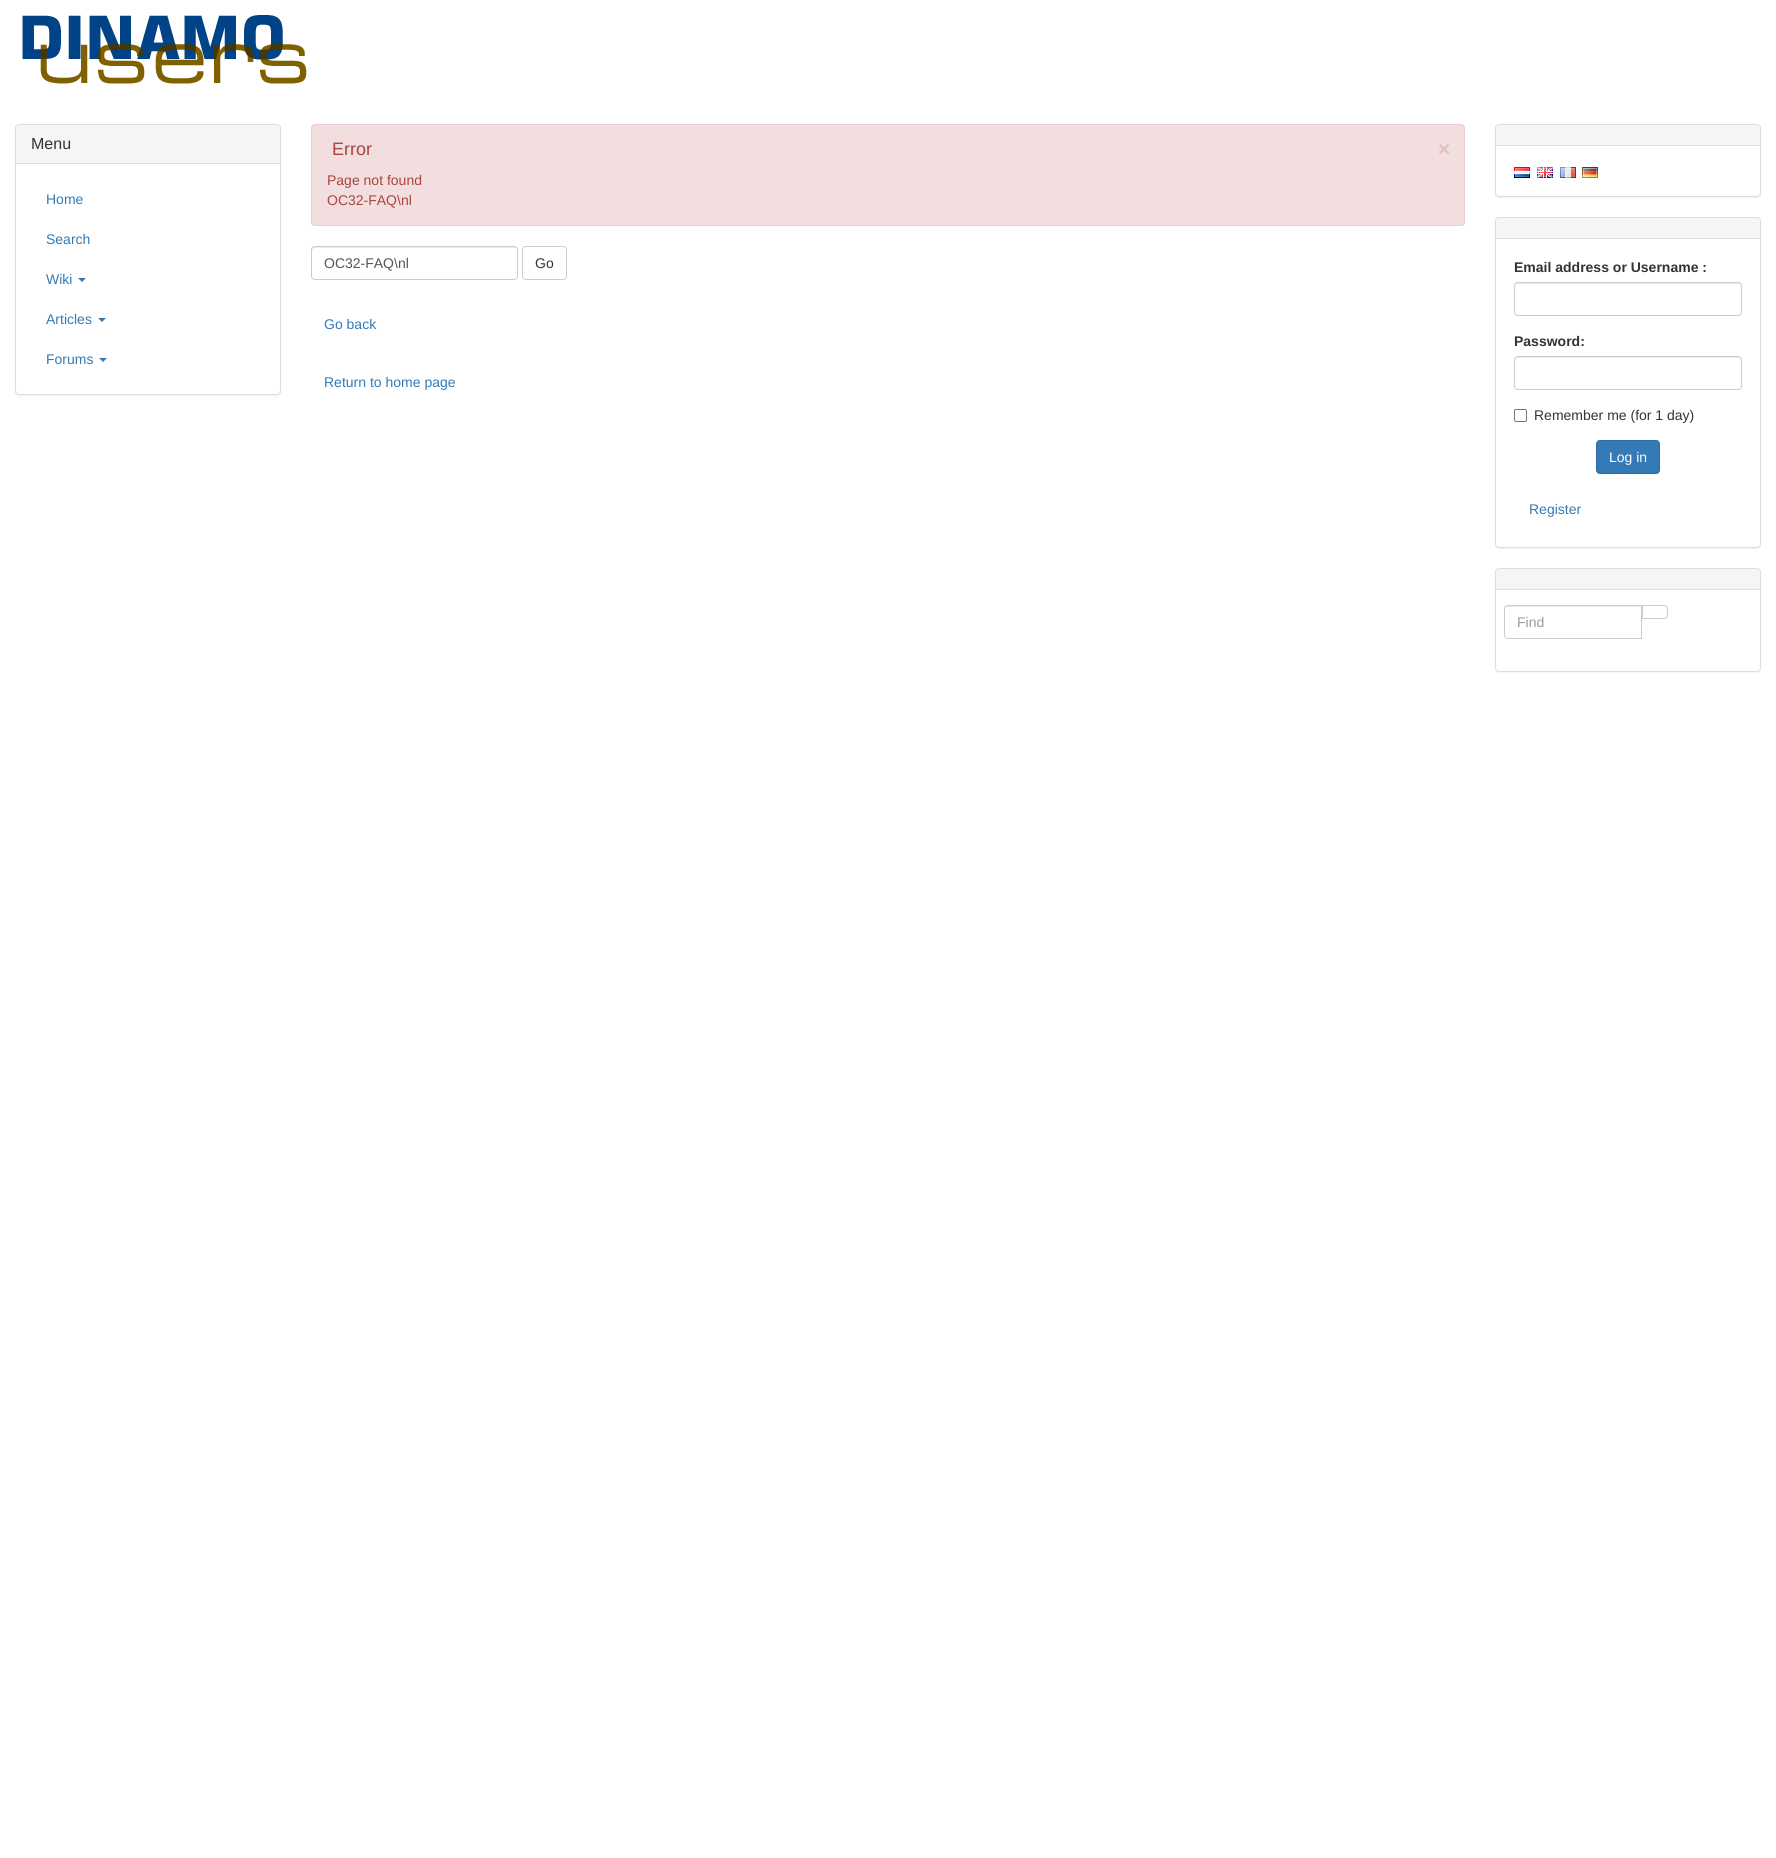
#include <cairo.h>
#include <math.h>
#include <stddef.h>


static void set_color(cairo_t *cr, unsigned color) {
    cairo_set_source_rgb(cr, (color >> 16) / 255.0, (color >> 8 & 255) / 255.0, (color & 255) / 255.0);
}

static void draw_text(cairo_t *cr, double x, double y, const char *s, const char *family, double size, int italic, int bold, unsigned color) {
    cairo_select_font_face(cr, family, italic ? CAIRO_FONT_SLANT_ITALIC : CAIRO_FONT_SLANT_NORMAL,
        bold ? CAIRO_FONT_WEIGHT_BOLD : CAIRO_FONT_WEIGHT_NORMAL);
    cairo_set_font_size(cr, size);
    set_color(cr, color);
    cairo_move_to(cr, x, y);
    cairo_show_text(cr, s);
}

static void fill_rect(cairo_t *cr, double x, double y, double w, double h, unsigned color) {
    set_color(cr, color);
    cairo_rectangle(cr, x, y, w, h);
    cairo_fill(cr);
}

static void rounded_rect(cairo_t *cr, double x, double y, double w, double h, double r) {
    cairo_new_sub_path(cr);
    cairo_arc(cr, x + w - r, y + h - r, r, 0, M_PI / 2);
    cairo_arc(cr, x + r, y + h - r, r, M_PI / 2, M_PI);
    cairo_arc(cr, x + r, y + r, r, M_PI, 1.5 * M_PI);
    cairo_arc(cr, x + w - r, y + r, r, 1.5 * M_PI, 2 * M_PI);
    cairo_close_path(cr);
}

static void draw_shadow(cairo_t *cr, double x, double y, double w, double h, double r, double blur, double alpha) {
    cairo_push_group_with_content(cr, CAIRO_CONTENT_ALPHA);
    cairo_set_operator(cr, CAIRO_OPERATOR_SOURCE);
    for (int i = 15; i >= -15 && fmin(w, h) + blur * i / 3 > 0; i -= 2) {
        double e = blur * i / 6;
        cairo_set_source_rgba(cr, 0, 0, 0, alpha * erfc((i - 1) / 8.5) / 2);
        rounded_rect(cr, x - e, y - e, w + 2 * e, h + 2 * e, fmax(0, fmin(r + e + blur * .6, fmin(w, h) / 2 + e)));
        cairo_fill(cr);
    }
    cairo_pattern_t *soft = cairo_pop_group(cr);
    cairo_mask(cr, soft);
    cairo_pattern_destroy(soft);
}

static void draw_image(cairo_t *cr, const char *path, double x, double y, double w, double h) {
    cairo_surface_t *image = cairo_image_surface_create_from_png(path);
    cairo_save(cr);
    cairo_set_source_surface(cr, image, x, y);
    cairo_rectangle(cr, x, y, w, h);
    cairo_fill(cr);
    cairo_restore(cr);
    cairo_surface_destroy(image);
}

int main(void) {
    cairo_surface_t *surface = cairo_image_surface_create(CAIRO_FORMAT_RGB24, 1776, 1858);
    cairo_t *cr = cairo_create(surface);
    cairo_font_options_t *options = cairo_font_options_create();
    cairo_font_options_set_hint_metrics(options, CAIRO_HINT_METRICS_OFF);
    cairo_font_options_set_hint_style(options, CAIRO_HINT_STYLE_NONE);
    cairo_set_font_options(cr, options);
    cairo_set_miter_limit(cr, 4);
    set_color(cr, 0xFFFFFF);
    cairo_paint(cr);
    draw_image(cr, "assets/img1.png", 22, 15, 285, 69);
    set_color(cr, 0x000000);
    draw_shadow(cr, 15, 125, 266, 271, 4, 0.5, 0.05);
    set_color(cr, 0xFFFFFF);
    rounded_rect(cr, 15.5, 124.5, 265, 270, 3.5);
    cairo_fill_preserve(cr);
    set_color(cr, 0xDDDDDD);
    cairo_set_line_width(cr, 1);
    cairo_stroke(cr);
    set_color(cr, 0xF5F5F5);
    cairo_new_path(cr);
    cairo_move_to(cr, 19, 125);
    cairo_line_to(cr, 277, 125);
    cairo_curve_to(cr, 278.5, 125, 280, 126.5, 280, 128);
    cairo_line_to(cr, 280, 164);
    cairo_line_to(cr, 16, 164);
    cairo_line_to(cr, 16, 128);
    cairo_curve_to(cr, 16, 126.5, 17.5, 125, 19, 125);
    cairo_close_path(cr);
    cairo_fill(cr);
    fill_rect(cr, 16, 163, 264, 1, 0xDDDDDD);
    draw_text(cr, 31, 149, "Menu", "Liberation Sans", 16, 0, 0, 0x333333);
    draw_text(cr, 46, 204, "Home", "Liberation Sans", 14, 0, 0, 0x337AB7);
    draw_text(cr, 46, 244, "Search", "Liberation Sans", 14, 0, 0, 0x337AB7);
    draw_text(cr, 46, 284, "Wiki", "Liberation Sans", 14, 0, 0, 0x337AB7);
    cairo_new_path(cr);
    cairo_move_to(cr, 78, 278);
    cairo_line_to(cr, 86, 278);
    cairo_line_to(cr, 82, 282);
    cairo_close_path(cr);
    cairo_fill(cr);
    draw_text(cr, 46, 324, "Articles", "Liberation Sans", 14, 0, 0, 0x337AB7);
    cairo_new_path(cr);
    cairo_move_to(cr, 98, 318);
    cairo_line_to(cr, 106, 318);
    cairo_line_to(cr, 102, 322);
    cairo_close_path(cr);
    cairo_fill(cr);
    draw_text(cr, 46, 364, "Forums", "Liberation Sans", 14, 0, 0, 0x337AB7);
    cairo_new_path(cr);
    cairo_move_to(cr, 99, 358);
    cairo_line_to(cr, 107, 358);
    cairo_line_to(cr, 103, 362);
    cairo_close_path(cr);
    cairo_fill(cr);
    set_color(cr, 0xF2DEDE);
    rounded_rect(cr, 311.5, 124.5, 1153, 101, 3.5);
    cairo_fill_preserve(cr);
    set_color(cr, 0xEBCCD1);
    cairo_stroke(cr);
    draw_text(cr, 332, 155, "Error", "Liberation Sans", 18, 0, 0, 0xA94442);
    draw_text(cr, 1438, 156, "×", "Liberation Sans", 21, 0, 1, 0xE3BFBF);
    draw_text(cr, 327, 185, "Page not found", "Liberation Sans", 14, 0, 0, 0xA94442);
    draw_text(cr, 327, 205, "OC32-FAQ\\nl", "Liberation Sans", 14, 0, 0, 0xA94442);
    set_color(cr, 0xECECEC);
    cairo_new_path(cr);
    cairo_move_to(cr, 315, 248);
    cairo_line_to(cr, 514, 248);
    cairo_curve_to(cr, 516, 248, 517, 249, 517, 251);
    cairo_curve_to(cr, 517, 249, 516, 247, 514, 247);
    cairo_line_to(cr, 315, 247);
    cairo_curve_to(cr, 313, 247, 312, 249, 312, 251);
    cairo_curve_to(cr, 312, 249, 313, 248, 315, 248);
    cairo_close_path(cr);
    cairo_fill(cr);
    rounded_rect(cr, 311.5, 246.5, 206, 33, 3.5);
    set_color(cr, 0xCCCCCC);
    cairo_stroke(cr);
    draw_text(cr, 324, 268, "OC32-FAQ\\nl", "Liberation Sans", 14, 0, 0, 0x555555);
    rounded_rect(cr, 522.5, 246.5, 44, 33, 3.5);
    set_color(cr, 0xCCCCCC);
    cairo_stroke(cr);
    draw_text(cr, 535, 268, "Go", "Liberation Sans", 14, 0, 0, 0x333333);
    draw_text(cr, 324, 329, "Go back", "Liberation Sans", 14, 0, 0, 0x337AB7);
    draw_text(cr, 324, 387, "Return to home page", "Liberation Sans", 14, 0, 0, 0x337AB7);
    set_color(cr, 0x000000);
    draw_shadow(cr, 1495, 125, 266, 73, 4, 0.5, 0.05);
    set_color(cr, 0xFFFFFF);
    rounded_rect(cr, 1495.5, 124.5, 265, 72, 3.5);
    cairo_fill_preserve(cr);
    set_color(cr, 0xDDDDDD);
    cairo_stroke(cr);
    set_color(cr, 0xF5F5F5);
    cairo_new_path(cr);
    cairo_move_to(cr, 1499, 125);
    cairo_line_to(cr, 1757, 125);
    cairo_curve_to(cr, 1758.5, 125, 1760, 126.5, 1760, 128);
    cairo_line_to(cr, 1760, 146);
    cairo_line_to(cr, 1496, 146);
    cairo_line_to(cr, 1496, 128);
    cairo_curve_to(cr, 1496, 126.5, 1497.5, 125, 1499, 125);
    cairo_close_path(cr);
    cairo_fill(cr);
    fill_rect(cr, 1496, 145, 264, 1, 0xDDDDDD);
    draw_image(cr, "assets/img2.png", 1514, 167, 16, 11);
    draw_image(cr, "assets/img3.png", 1537, 167, 16, 11);
    draw_image(cr, "assets/img4.png", 1560, 167, 16, 11);
    draw_image(cr, "assets/img5.png", 1582, 167, 16, 11);
    set_color(cr, 0x000000);
    draw_shadow(cr, 1495, 218, 266, 331, 4, 0.5, 0.05);
    set_color(cr, 0xFFFFFF);
    rounded_rect(cr, 1495.5, 217.5, 265, 330, 3.5);
    cairo_fill_preserve(cr);
    set_color(cr, 0xDDDDDD);
    cairo_stroke(cr);
    set_color(cr, 0xF5F5F5);
    cairo_new_path(cr);
    cairo_move_to(cr, 1499, 218);
    cairo_line_to(cr, 1757, 218);
    cairo_curve_to(cr, 1758.5, 218, 1760, 219.5, 1760, 221);
    cairo_line_to(cr, 1760, 239);
    cairo_line_to(cr, 1496, 239);
    cairo_line_to(cr, 1496, 221);
    cairo_curve_to(cr, 1496, 219.5, 1497.5, 218, 1499, 218);
    cairo_close_path(cr);
    cairo_fill(cr);
    fill_rect(cr, 1496, 238, 264, 1, 0xDDDDDD);
    draw_text(cr, 1514, 272, "Email address or Username :", "Liberation Sans", 14, 0, 1, 0x333333);
    set_color(cr, 0xECECEC);
    cairo_new_path(cr);
    cairo_move_to(cr, 1518, 284);
    cairo_line_to(cr, 1738, 284);
    cairo_curve_to(cr, 1740, 284, 1741, 285, 1741, 287);
    cairo_line_to(cr, 1741, 286);
    cairo_curve_to(cr, 1741, 284, 1740, 283, 1738, 283);
    cairo_line_to(cr, 1518, 283);
    cairo_curve_to(cr, 1516, 283, 1515, 284, 1515, 286);
    cairo_line_to(cr, 1515, 287);
    cairo_curve_to(cr, 1515, 285, 1516, 284, 1518, 284);
    cairo_close_path(cr);
    cairo_fill(cr);
    rounded_rect(cr, 1514.5, 282.5, 227, 33, 3.5);
    set_color(cr, 0xCCCCCC);
    cairo_stroke(cr);
    draw_text(cr, 1514, 346, "Password:", "Liberation Sans", 14, 0, 1, 0x333333);
    set_color(cr, 0xECECEC);
    cairo_new_path(cr);
    cairo_move_to(cr, 1518, 358);
    cairo_line_to(cr, 1738, 358);
    cairo_curve_to(cr, 1740, 358, 1741, 359, 1741, 361);
    cairo_line_to(cr, 1741, 360);
    cairo_curve_to(cr, 1741, 358, 1740, 357, 1738, 357);
    cairo_line_to(cr, 1518, 357);
    cairo_curve_to(cr, 1516, 357, 1515, 358, 1515, 360);
    cairo_line_to(cr, 1515, 361);
    cairo_curve_to(cr, 1515, 359, 1516, 358, 1518, 358);
    cairo_close_path(cr);
    cairo_fill(cr);
    rounded_rect(cr, 1514.5, 356.5, 227, 33, 3.5);
    set_color(cr, 0xCCCCCC);
    cairo_stroke(cr);
    rounded_rect(cr, 1514.5, 409.5, 12, 12, 1.5);
    set_color(cr, 0x767676);
    cairo_stroke(cr);
    draw_text(cr, 1534, 420, "Remember me (for 1 day)", "Liberation Sans", 14, 0, 0, 0x333333);
    set_color(cr, 0x337AB7);
    rounded_rect(cr, 1596.5, 440.5, 63, 33, 3.5);
    cairo_fill_preserve(cr);
    set_color(cr, 0x2E6DA4);
    cairo_stroke(cr);
    draw_text(cr, 1609, 462, "Log in", "Liberation Sans", 14, 0, 0, 0xFFFFFF);
    draw_text(cr, 1529, 514, "Register", "Liberation Sans", 14, 0, 0, 0x337AB7);
    set_color(cr, 0x000000);
    draw_shadow(cr, 1495, 569, 266, 104, 4, 0.5, 0.05);
    set_color(cr, 0xFFFFFF);
    rounded_rect(cr, 1495.5, 568.5, 265, 103, 3.5);
    cairo_fill_preserve(cr);
    set_color(cr, 0xDDDDDD);
    cairo_stroke(cr);
    set_color(cr, 0xF5F5F5);
    cairo_new_path(cr);
    cairo_move_to(cr, 1499, 569);
    cairo_line_to(cr, 1757, 569);
    cairo_curve_to(cr, 1758.5, 569, 1760, 570.5, 1760, 572);
    cairo_line_to(cr, 1760, 590);
    cairo_line_to(cr, 1496, 590);
    cairo_line_to(cr, 1496, 572);
    cairo_curve_to(cr, 1496, 570.5, 1497.5, 569, 1499, 569);
    cairo_close_path(cr);
    cairo_fill(cr);
    fill_rect(cr, 1496, 589, 264, 1, 0xDDDDDD);
    cairo_new_path(cr);
    cairo_move_to(cr, 1642.5, 605.5);
    cairo_line_to(cr, 1664, 605.5);
    cairo_curve_to(cr, 1666, 605.5, 1667.5, 607, 1667.5, 609);
    cairo_line_to(cr, 1667.5, 615);
    cairo_curve_to(cr, 1667.5, 617, 1666, 618.5, 1664, 618.5);
    cairo_line_to(cr, 1642.5, 618.5);
    cairo_close_path(cr);
    set_color(cr, 0xCCCCCC);
    cairo_stroke(cr);
    set_color(cr, 0xECECEC);
    cairo_new_path(cr);
    cairo_move_to(cr, 1508, 607);
    cairo_line_to(cr, 1641, 607);
    cairo_line_to(cr, 1641, 606);
    cairo_line_to(cr, 1508, 606);
    cairo_curve_to(cr, 1506, 606, 1505, 608, 1505, 610);
    cairo_curve_to(cr, 1505, 608, 1506, 607, 1508, 607);
    cairo_close_path(cr);
    cairo_fill(cr);
    cairo_new_path(cr);
    cairo_move_to(cr, 1508, 605.5);
    cairo_line_to(cr, 1641.5, 605.5);
    cairo_line_to(cr, 1641.5, 638.5);
    cairo_line_to(cr, 1508, 638.5);
    cairo_curve_to(cr, 1506, 638.5, 1504.5, 637, 1504.5, 635);
    cairo_line_to(cr, 1504.5, 609);
    cairo_curve_to(cr, 1504.5, 607, 1506, 605.5, 1508, 605.5);
    cairo_close_path(cr);
    set_color(cr, 0xCCCCCC);
    cairo_stroke(cr);
    draw_text(cr, 1517, 627, "Find", "Liberation Sans", 14, 0, 0, 0x999999);
    cairo_surface_write_to_png(surface, "output.png");
    cairo_font_options_destroy(options);
    cairo_destroy(cr);
    cairo_surface_destroy(surface);
    return 0;
}
